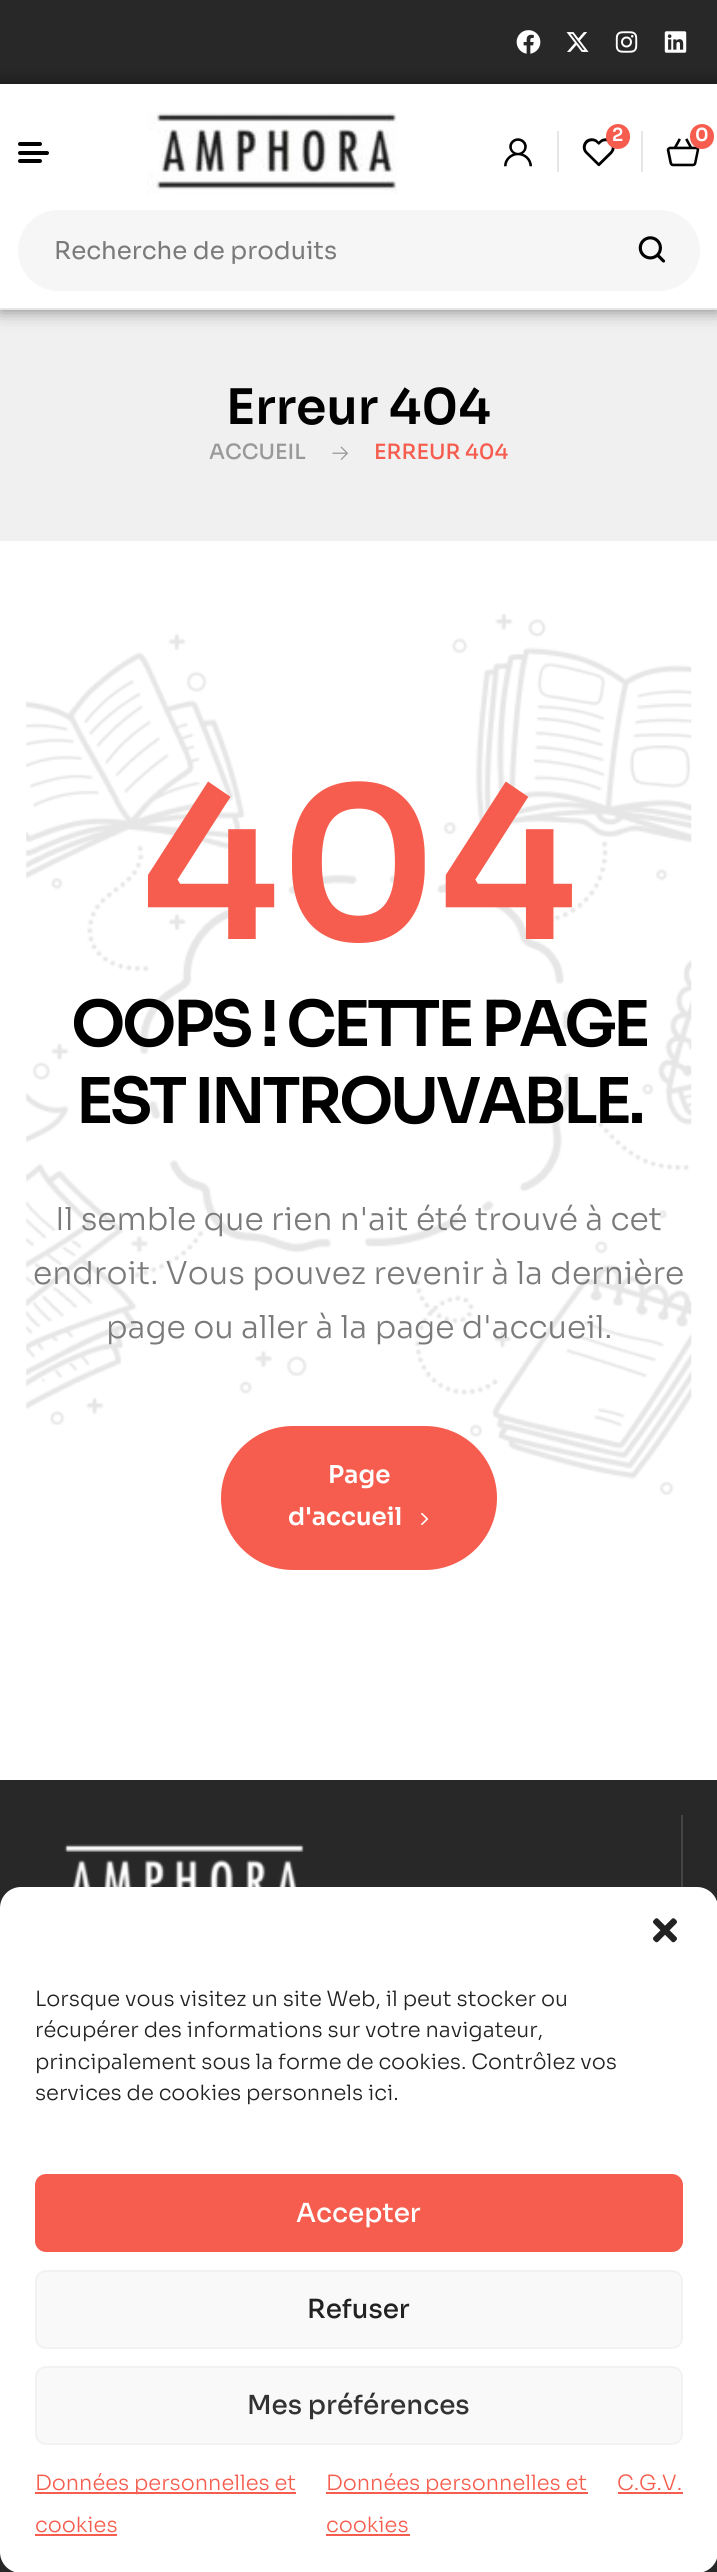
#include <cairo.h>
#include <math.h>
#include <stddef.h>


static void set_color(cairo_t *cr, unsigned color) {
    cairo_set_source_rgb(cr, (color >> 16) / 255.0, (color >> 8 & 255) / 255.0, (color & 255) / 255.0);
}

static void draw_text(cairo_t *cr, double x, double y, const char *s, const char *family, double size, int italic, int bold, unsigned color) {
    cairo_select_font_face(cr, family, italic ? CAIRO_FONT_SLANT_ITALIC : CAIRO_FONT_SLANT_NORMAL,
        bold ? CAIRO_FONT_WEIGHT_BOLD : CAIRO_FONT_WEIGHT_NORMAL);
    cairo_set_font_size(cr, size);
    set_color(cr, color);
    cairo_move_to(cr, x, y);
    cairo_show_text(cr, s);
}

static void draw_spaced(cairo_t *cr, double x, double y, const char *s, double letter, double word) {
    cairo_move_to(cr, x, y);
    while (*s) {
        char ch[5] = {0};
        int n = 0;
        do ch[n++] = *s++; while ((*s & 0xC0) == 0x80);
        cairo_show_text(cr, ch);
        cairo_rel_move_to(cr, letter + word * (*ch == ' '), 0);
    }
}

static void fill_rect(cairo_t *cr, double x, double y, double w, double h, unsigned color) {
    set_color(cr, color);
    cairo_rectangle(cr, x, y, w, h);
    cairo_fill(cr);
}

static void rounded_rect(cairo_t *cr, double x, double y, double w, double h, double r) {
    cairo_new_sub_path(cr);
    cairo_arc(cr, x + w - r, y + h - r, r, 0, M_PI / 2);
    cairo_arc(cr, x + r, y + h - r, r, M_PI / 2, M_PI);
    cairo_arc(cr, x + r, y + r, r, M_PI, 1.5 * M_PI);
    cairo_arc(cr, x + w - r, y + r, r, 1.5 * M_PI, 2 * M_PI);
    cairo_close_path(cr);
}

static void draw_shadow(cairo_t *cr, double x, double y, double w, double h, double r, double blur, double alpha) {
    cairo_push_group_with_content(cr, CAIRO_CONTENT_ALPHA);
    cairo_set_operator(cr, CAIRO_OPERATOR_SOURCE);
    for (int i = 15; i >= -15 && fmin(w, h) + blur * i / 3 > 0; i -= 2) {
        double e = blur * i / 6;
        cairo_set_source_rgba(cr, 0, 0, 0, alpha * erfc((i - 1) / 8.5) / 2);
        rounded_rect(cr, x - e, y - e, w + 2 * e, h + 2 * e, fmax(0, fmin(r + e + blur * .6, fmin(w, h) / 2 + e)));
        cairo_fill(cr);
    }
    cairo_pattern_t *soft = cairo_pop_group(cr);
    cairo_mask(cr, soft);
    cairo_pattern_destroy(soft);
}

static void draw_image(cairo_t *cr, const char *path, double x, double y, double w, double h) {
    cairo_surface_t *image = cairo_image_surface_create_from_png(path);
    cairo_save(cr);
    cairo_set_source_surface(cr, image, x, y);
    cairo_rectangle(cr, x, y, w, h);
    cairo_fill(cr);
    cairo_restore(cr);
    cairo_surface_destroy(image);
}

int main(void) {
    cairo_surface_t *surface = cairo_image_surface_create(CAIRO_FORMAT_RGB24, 717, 2572);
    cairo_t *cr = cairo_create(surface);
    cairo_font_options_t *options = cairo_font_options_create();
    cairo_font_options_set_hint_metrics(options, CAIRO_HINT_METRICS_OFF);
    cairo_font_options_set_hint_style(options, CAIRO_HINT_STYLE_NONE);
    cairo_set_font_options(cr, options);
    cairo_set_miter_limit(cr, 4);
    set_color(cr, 0xFFFFFF);
    cairo_paint(cr);
    fill_rect(cr, 0, 0, 717, 84, 0x282828);
    draw_image(cr, "assets/img1.png", 516, 30, 25, 24);
    draw_image(cr, "assets/img2.png", 566, 32, 23, 20);
    draw_image(cr, "assets/img3.png", 615, 31, 23, 22);
    draw_image(cr, "assets/img4.png", 664, 31, 23, 22);
    fill_rect(cr, 0, 310, 717, 231, 0xF0F0F0);
    set_color(cr, 0x000000);
    draw_shadow(cr, 0, 84, 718, 226, 0, 9, 0.5);
    fill_rect(cr, 0, 84, 717, 224, 0xFFFFFF);
    draw_image(cr, "assets/img5.png", 147, 112, 250, 82);
    fill_rect(cr, 557, 131, 2, 41, 0xE6E6E6);
    draw_image(cr, "assets/img6.png", 504, 138, 28, 29);
    fill_rect(cr, 641, 131, 2, 41, 0xE6E6E6);
    draw_image(cr, "assets/img7.png", 582, 138, 33, 29);
    set_color(cr, 0xF65D4E);
    rounded_rect(cr, 606, 124, 24, 25, 12);
    cairo_fill(cr);
    draw_text(cr, 612, 141, "2", "Sora SemiBold", 18, 0, 0, 0xFFFFFF);
    draw_image(cr, "assets/img8.png", 666, 138, 34, 29);
    set_color(cr, 0xF65D4E);
    rounded_rect(cr, 690, 124, 24, 25, 12);
    cairo_fill(cr);
    draw_text(cr, 695, 141, "0", "Sora SemiBold", 18, 0, 0, 0xFFFFFF);
    set_color(cr, 0x000000);
    rounded_rect(cr, 18, 142, 24, 4, 2);
    cairo_fill(cr);
    rounded_rect(cr, 18, 151, 31, 4, 2);
    cairo_fill(cr);
    rounded_rect(cr, 18, 159, 24, 4, 2);
    cairo_fill(cr);
    set_color(cr, 0xF6F6F6);
    rounded_rect(cr, 18, 210, 682, 81, 40.5);
    cairo_fill(cr);
    draw_text(cr, 54, 259, "Recherche de produits", "Sora", 24.5, 0, 0, 0x7A7A7A);
    draw_image(cr, "assets/img9.png", 638, 236, 28, 27);
    fill_rect(cr, 0, 308, 717, 2, 0xE6E6E6);
    draw_text(cr, 226, 424, "Erreur 404", "Sora SemiBold", 49, 0, 0, 0x000000);
    draw_text(cr, 209, 459, "ACCUEIL", "Sora Medium", 21, 0, 0, 0x999999);
    draw_image(cr, "assets/img10.png", 332, 446, 16, 14);
    draw_text(cr, 374, 459, "ERREUR 404", "Sora Medium", 21, 0, 0, 0xF65D4E);
    draw_image(cr, "assets/img11.png", 26, 614, 666, 881);
    draw_text(cr, 140, 939, "404", "Sora SemiBold", 210, 0, 0, 0xF65D4E);
    cairo_set_font_size(cr, 63);
    set_color(cr, 0x000000);
    draw_spaced(cr, 71, 1046, "OOPS ! CETTE PAGE", -3.5, 0);
    draw_spaced(cr, 76, 1123, "EST INTROUVABLE.", -3.5, 0);
    draw_text(cr, 55, 1230, "Il semble que rien n'ait été trouvé à cet", "Sora Light", 31.5, 0, 0, 0x7A7A7A);
    draw_text(cr, 33, 1284, "endroit. Vous pouvez revenir à la dernière", "Sora Light", 31.5, 0, 0, 0x7A7A7A);
    draw_text(cr, 106, 1338, "page ou aller à la page d'accueil.", "Sora Light", 31.5, 0, 0, 0x7A7A7A);
    set_color(cr, 0xF65D4E);
    rounded_rect(cr, 221, 1426, 276, 144, 72);
    cairo_fill(cr);
    draw_text(cr, 328, 1483, "Page", "Sora SemiBold", 24.5, 0, 0, 0xFFFFFF);
    draw_text(cr, 288, 1525, "d'accueil", "Sora SemiBold", 24.5, 0, 0, 0xFFFFFF);
    draw_image(cr, "assets/img12.png", 421, 1512, 8, 14);
    fill_rect(cr, 0, 1780, 717, 792, 0x282828);
    fill_rect(cr, 681, 1815, 2, 72, 0x444444);
    draw_image(cr, "assets/img13.png", 64, 1844, 240, 43);
    set_color(cr, 0xFFFFFF);
    rounded_rect(cr, 0, 1887, 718, 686, 21);
    cairo_fill(cr);
    draw_image(cr, "assets/img14.png", 653, 1918, 24, 25);
    draw_text(cr, 35, 2006, "Lorsque vous visitez un site Web, il peut stocker ou", "Sora Light", 21, 0, 0, 0x222222);
    draw_text(cr, 35, 2037, "récupérer des informations sur votre navigateur,", "Sora Light", 21, 0, 0, 0x222222);
    draw_text(cr, 35, 2069, "principalement sous la forme de cookies. Contrôlez vos", "Sora Light", 21, 0, 0, 0x222222);
    draw_text(cr, 35, 2100, "services de cookies personnels ici.", "Sora Light", 21, 0, 0, 0x222222);
    set_color(cr, 0xF65D4E);
    rounded_rect(cr, 36, 2175, 646, 76, 10);
    cairo_fill_preserve(cr);
    cairo_stroke(cr);
    draw_text(cr, 296, 2222, "Accepter", "Sora Medium", 26.25, 0, 0, 0xFFFFFF);
    set_color(cr, 0xF9F9F9);
    rounded_rect(cr, 36, 2271, 646, 77, 10);
    cairo_fill_preserve(cr);
    set_color(cr, 0xF2F2F2);
    cairo_stroke(cr);
    draw_text(cr, 307, 2318, "Refuser", "Sora Medium", 26.25, 0, 0, 0x222222);
    set_color(cr, 0xF9F9F9);
    rounded_rect(cr, 36, 2367, 646, 77, 10);
    cairo_fill_preserve(cr);
    set_color(cr, 0xF2F2F2);
    cairo_stroke(cr);
    draw_text(cr, 247, 2414, "Mes préférences", "Sora Medium", 26.25, 0, 0, 0x333333);
    fill_rect(cr, 35, 2492, 261, 2, 0xF65D4E);
    draw_text(cr, 35, 2490, "Données personnelles et", "Sora Light", 21, 0, 0, 0xF65D4E);
    draw_text(cr, 35, 2532, "cookies", "Sora Light", 21, 0, 0, 0xF65D4E);
    fill_rect(cr, 35, 2534, 82, 2, 0xF65D4E);
    fill_rect(cr, 326, 2492, 262, 2, 0xF65D4E);
    draw_text(cr, 326, 2490, "Données personnelles et", "Sora Light", 21, 0, 0, 0xF65D4E);
    draw_text(cr, 326, 2532, "cookies", "Sora Light", 21, 0, 0, 0xF65D4E);
    fill_rect(cr, 326, 2534, 84, 2, 0xF65D4E);
    draw_text(cr, 617, 2490, "C.G.V.", "Sora Light", 21, 0, 0, 0xF65D4E);
    fill_rect(cr, 618, 2492, 65, 2, 0xF65D4E);
    cairo_surface_write_to_png(surface, "output.png");
    cairo_font_options_destroy(options);
    cairo_destroy(cr);
    cairo_surface_destroy(surface);
    return 0;
}
